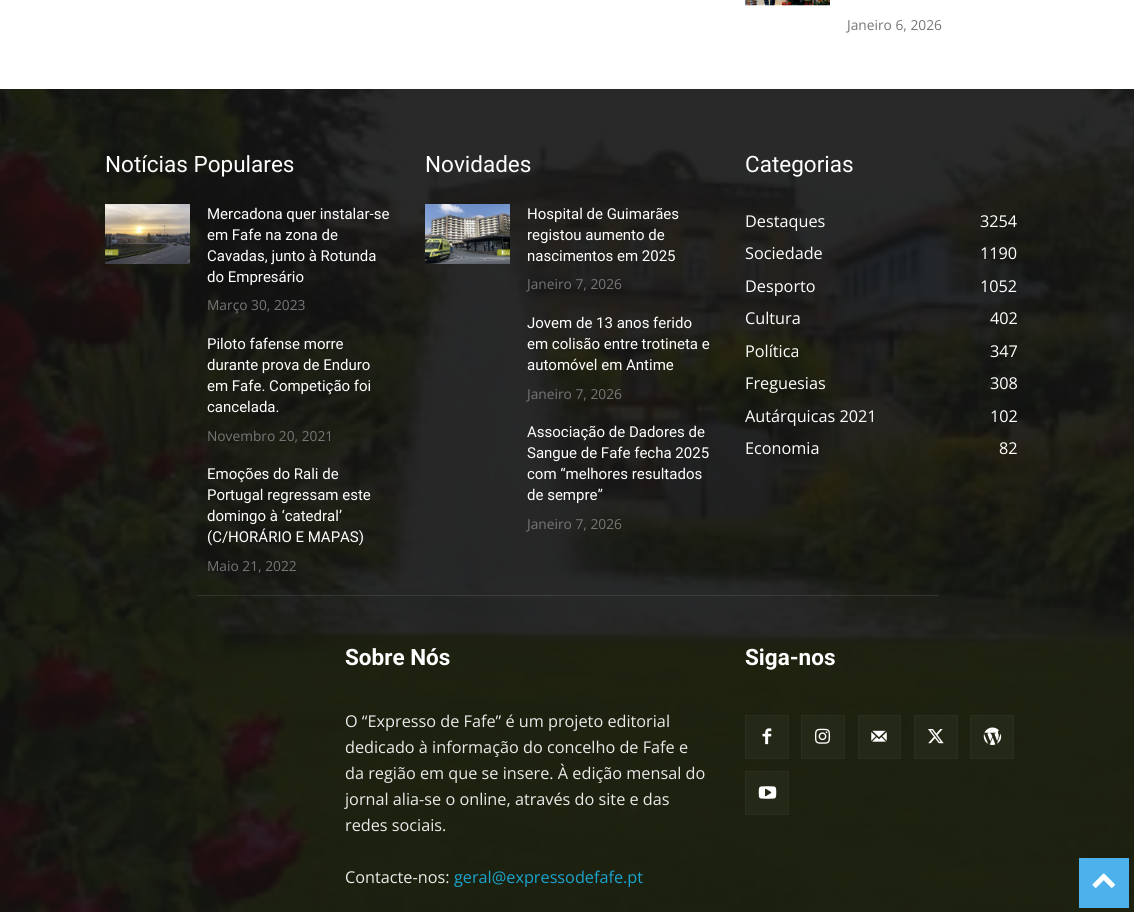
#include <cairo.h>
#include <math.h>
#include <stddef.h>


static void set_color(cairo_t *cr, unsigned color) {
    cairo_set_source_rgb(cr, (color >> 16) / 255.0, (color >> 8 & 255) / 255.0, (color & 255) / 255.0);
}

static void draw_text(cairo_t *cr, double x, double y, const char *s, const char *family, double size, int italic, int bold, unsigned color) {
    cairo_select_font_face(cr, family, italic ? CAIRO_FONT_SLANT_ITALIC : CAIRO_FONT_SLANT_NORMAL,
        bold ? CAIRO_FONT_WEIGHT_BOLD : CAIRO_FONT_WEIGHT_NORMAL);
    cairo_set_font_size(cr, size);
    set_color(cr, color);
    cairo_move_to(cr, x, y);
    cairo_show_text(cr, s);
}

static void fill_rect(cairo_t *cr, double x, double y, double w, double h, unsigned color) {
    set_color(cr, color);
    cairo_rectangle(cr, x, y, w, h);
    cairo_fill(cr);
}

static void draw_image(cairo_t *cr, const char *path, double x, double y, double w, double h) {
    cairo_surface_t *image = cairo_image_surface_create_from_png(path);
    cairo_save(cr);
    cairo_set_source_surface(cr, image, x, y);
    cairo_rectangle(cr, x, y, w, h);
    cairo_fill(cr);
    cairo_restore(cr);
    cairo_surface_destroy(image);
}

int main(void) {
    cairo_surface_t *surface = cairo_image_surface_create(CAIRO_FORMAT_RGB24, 1134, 912);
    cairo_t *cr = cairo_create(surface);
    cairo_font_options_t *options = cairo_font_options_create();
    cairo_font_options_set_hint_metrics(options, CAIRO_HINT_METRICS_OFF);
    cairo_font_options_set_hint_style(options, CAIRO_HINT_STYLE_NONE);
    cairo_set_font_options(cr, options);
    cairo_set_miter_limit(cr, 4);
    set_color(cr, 0xFFFFFF);
    cairo_paint(cr);
    draw_image(cr, "assets/img1.png", 745, 0, 85, 6);
    draw_text(cr, 847, 30, "Janeiro 6, 2026", "Open Sans", 13.75, 0, 0, 0x767676);
    fill_rect(cr, 0, 89, 1134, 823, 0x111111);
    draw_image(cr, "assets/img2.png", 0, 89, 1134, 823);
    draw_text(cr, 105, 172, "Notícias Populares", "Roboto", 22.5, 0, 0, 0xFFFFFF);
    draw_image(cr, "assets/img3.png", 105, 204, 85, 60);
    draw_text(cr, 207, 219, "Mercadona quer instalar-se", "Roboto", 15, 0, 0, 0xFFFFFF);
    draw_text(cr, 207, 240, "em Fafe na zona de", "Roboto", 15, 0, 0, 0xFFFFFF);
    draw_text(cr, 207, 261, "Cavadas, junto à Rotunda", "Roboto", 15, 0, 0, 0xFFFFFF);
    draw_text(cr, 207, 282, "do Empresário", "Roboto", 15, 0, 0, 0xFFFFFF);
    draw_text(cr, 207, 310, "Março 30, 2023", "Open Sans", 13.75, 0, 0, 0x767676);
    draw_text(cr, 207, 349, "Piloto fafense morre", "Roboto", 15, 0, 0, 0xFFFFFF);
    draw_text(cr, 207, 370, "durante prova de Enduro", "Roboto", 15, 0, 0, 0xFFFFFF);
    draw_text(cr, 207, 391, "em Fafe. Competição foi", "Roboto", 15, 0, 0, 0xFFFFFF);
    draw_text(cr, 207, 412, "cancelada.", "Roboto", 15, 0, 0, 0xFFFFFF);
    draw_text(cr, 207, 441, "Novembro 20, 2021", "Open Sans", 13.75, 0, 0, 0x767676);
    draw_text(cr, 207, 479, "Emoções do Rali de", "Roboto", 15, 0, 0, 0xFFFFFF);
    draw_text(cr, 207, 500, "Portugal regressam este", "Roboto", 15, 0, 0, 0xFFFFFF);
    draw_text(cr, 207, 521, "domingo à ‘catedral’", "Roboto", 15, 0, 0, 0xFFFFFF);
    draw_text(cr, 207, 542, "(C/HORÁRIO E MAPAS)", "Roboto", 15, 0, 0, 0xFFFFFF);
    draw_text(cr, 207, 571, "Maio 21, 2022", "Open Sans", 13.75, 0, 0, 0x767676);
    draw_text(cr, 425, 172, "Novidades", "Roboto", 22.5, 0, 0, 0xFFFFFF);
    draw_image(cr, "assets/img4.png", 425, 204, 85, 60);
    draw_text(cr, 527, 219, "Hospital de Guimarães", "Roboto", 15, 0, 0, 0xFFFFFF);
    draw_text(cr, 527, 240, "registou aumento de", "Roboto", 15, 0, 0, 0xFFFFFF);
    draw_text(cr, 527, 261, "nascimentos em 2025", "Roboto", 15, 0, 0, 0xFFFFFF);
    draw_text(cr, 527, 289, "Janeiro 7, 2026", "Open Sans", 13.75, 0, 0, 0x767676);
    draw_text(cr, 527, 328, "Jovem de 13 anos ferido", "Roboto", 15, 0, 0, 0xFFFFFF);
    draw_text(cr, 527, 349, "em colisão entre trotineta e", "Roboto", 15, 0, 0, 0xFFFFFF);
    draw_text(cr, 527, 370, "automóvel em Antime", "Roboto", 15, 0, 0, 0xFFFFFF);
    draw_text(cr, 527, 399, "Janeiro 7, 2026", "Open Sans", 13.75, 0, 0, 0x767676);
    draw_text(cr, 527, 437, "Associação de Dadores de", "Roboto", 15, 0, 0, 0xFFFFFF);
    draw_text(cr, 527, 458, "Sangue de Fafe fecha 2025", "Roboto", 15, 0, 0, 0xFFFFFF);
    draw_text(cr, 527, 479, "com “melhores resultados", "Roboto", 15, 0, 0, 0xFFFFFF);
    draw_text(cr, 527, 500, "de sempre”", "Roboto", 15, 0, 0, 0xFFFFFF);
    draw_text(cr, 527, 529, "Janeiro 7, 2026", "Open Sans", 13.75, 0, 0, 0x767676);
    draw_text(cr, 745, 172, "Categorias", "Roboto", 22.5, 0, 0, 0xFFFFFF);
    draw_text(cr, 745, 227, "Destaques", "Open Sans", 16.25, 0, 0, 0xFFFFFF);
    draw_text(cr, 980, 227, "3254", "Open Sans", 16.25, 0, 0, 0xFFFFFF);
    draw_text(cr, 745, 259, "Sociedade", "Open Sans", 16.25, 0, 0, 0xFFFFFF);
    draw_text(cr, 980, 259, "1190", "Open Sans", 16.25, 0, 0, 0xFFFFFF);
    draw_text(cr, 745, 292, "Desporto", "Open Sans", 16.25, 0, 0, 0xFFFFFF);
    draw_text(cr, 980, 292, "1052", "Open Sans", 16.25, 0, 0, 0xFFFFFF);
    draw_text(cr, 745, 324, "Cultura", "Open Sans", 16.25, 0, 0, 0xFFFFFF);
    draw_text(cr, 990, 324, "402", "Open Sans", 16.25, 0, 0, 0xFFFFFF);
    draw_text(cr, 745, 357, "Política", "Open Sans", 16.25, 0, 0, 0xFFFFFF);
    draw_text(cr, 990, 357, "347", "Open Sans", 16.25, 0, 0, 0xFFFFFF);
    draw_text(cr, 745, 389, "Freguesias", "Open Sans", 16.25, 0, 0, 0xFFFFFF);
    draw_text(cr, 990, 389, "308", "Open Sans", 16.25, 0, 0, 0xFFFFFF);
    draw_text(cr, 745, 422, "Autárquicas 2021", "Open Sans", 16.25, 0, 0, 0xFFFFFF);
    draw_text(cr, 990, 422, "102", "Open Sans", 16.25, 0, 0, 0xFFFFFF);
    draw_text(cr, 745, 454, "Economia", "Open Sans", 16.25, 0, 0, 0xFFFFFF);
    draw_text(cr, 999, 454, "82", "Open Sans", 16.25, 0, 0, 0xFFFFFF);
    cairo_set_source_rgba(cr, 1, 1, 1, 0.1);
    cairo_rectangle(cr, 198, 595, 740, 1);
    cairo_fill(cr);
    draw_text(cr, 345, 665, "Sobre Nós", "Roboto", 22.5, 0, 1, 0xFFFFFF);
    draw_text(cr, 345, 727, "O “Expresso de Fafe” é um projeto editorial", "Open Sans", 16.25, 0, 0, 0xEAEAEA);
    draw_text(cr, 345, 753, "dedicado à informação do concelho de Fafe e", "Open Sans", 16.25, 0, 0, 0xEAEAEA);
    draw_text(cr, 345, 779, "da região em que se insere. À edição mensal do", "Open Sans", 16.25, 0, 0, 0xEAEAEA);
    draw_text(cr, 345, 805, "jornal alia-se o online, através do site e das", "Open Sans", 16.25, 0, 0, 0xEAEAEA);
    draw_text(cr, 345, 831, "redes sociais.", "Open Sans", 16.25, 0, 0, 0xEAEAEA);
    draw_text(cr, 345, 883, "Contacte-nos:", "Open Sans", 16.25, 0, 0, 0xEAEAEA);
    draw_text(cr, 454, 883, "geral@expressodefafe.pt", "Open Sans", 16.25, 0, 0, 0x1AA4CE);
    draw_text(cr, 745, 665, "Siga-nos", "Roboto", 22.5, 0, 1, 0xFFFFFF);
    set_color(cr, 0x242816);
    cairo_rectangle(cr, 745.5, 715.5, 43, 43);
    cairo_fill_preserve(cr);
    set_color(cr, 0x2B2E1D);
    cairo_set_line_width(cr, 1);
    cairo_stroke(cr);
    draw_image(cr, "assets/img5.png", 762, 728, 10, 17);
    set_color(cr, 0x242816);
    cairo_rectangle(cr, 801.5, 715.5, 43, 43);
    cairo_fill_preserve(cr);
    set_color(cr, 0x2B2E1D);
    cairo_stroke(cr);
    draw_image(cr, "assets/img6.png", 815, 728, 15, 16);
    set_color(cr, 0x242816);
    cairo_rectangle(cr, 858.5, 715.5, 42, 43);
    cairo_fill_preserve(cr);
    set_color(cr, 0x2B2E1D);
    cairo_stroke(cr);
    draw_image(cr, "assets/img7.png", 871, 730, 16, 12);
    set_color(cr, 0x242816);
    cairo_rectangle(cr, 914.5, 715.5, 43, 43);
    cairo_fill_preserve(cr);
    set_color(cr, 0x2B2E1D);
    cairo_stroke(cr);
    draw_image(cr, "assets/img8.png", 928, 729, 16, 15);
    set_color(cr, 0x242816);
    cairo_rectangle(cr, 970.5, 715.5, 43, 43);
    cairo_fill_preserve(cr);
    set_color(cr, 0x2B2E1D);
    cairo_stroke(cr);
    draw_image(cr, "assets/img9.png", 983, 727, 19, 18);
    set_color(cr, 0x242816);
    cairo_rectangle(cr, 745.5, 771.5, 43, 43);
    cairo_fill_preserve(cr);
    set_color(cr, 0x2B2E1D);
    cairo_stroke(cr);
    draw_image(cr, "assets/img10.png", 758, 786, 19, 13);
    fill_rect(cr, 1079, 858, 50, 50, 0x4DB2EC);
    draw_image(cr, "assets/img11.png", 1092, 873, 23, 15);
    cairo_surface_write_to_png(surface, "output.png");
    cairo_font_options_destroy(options);
    cairo_destroy(cr);
    cairo_surface_destroy(surface);
    return 0;
}
